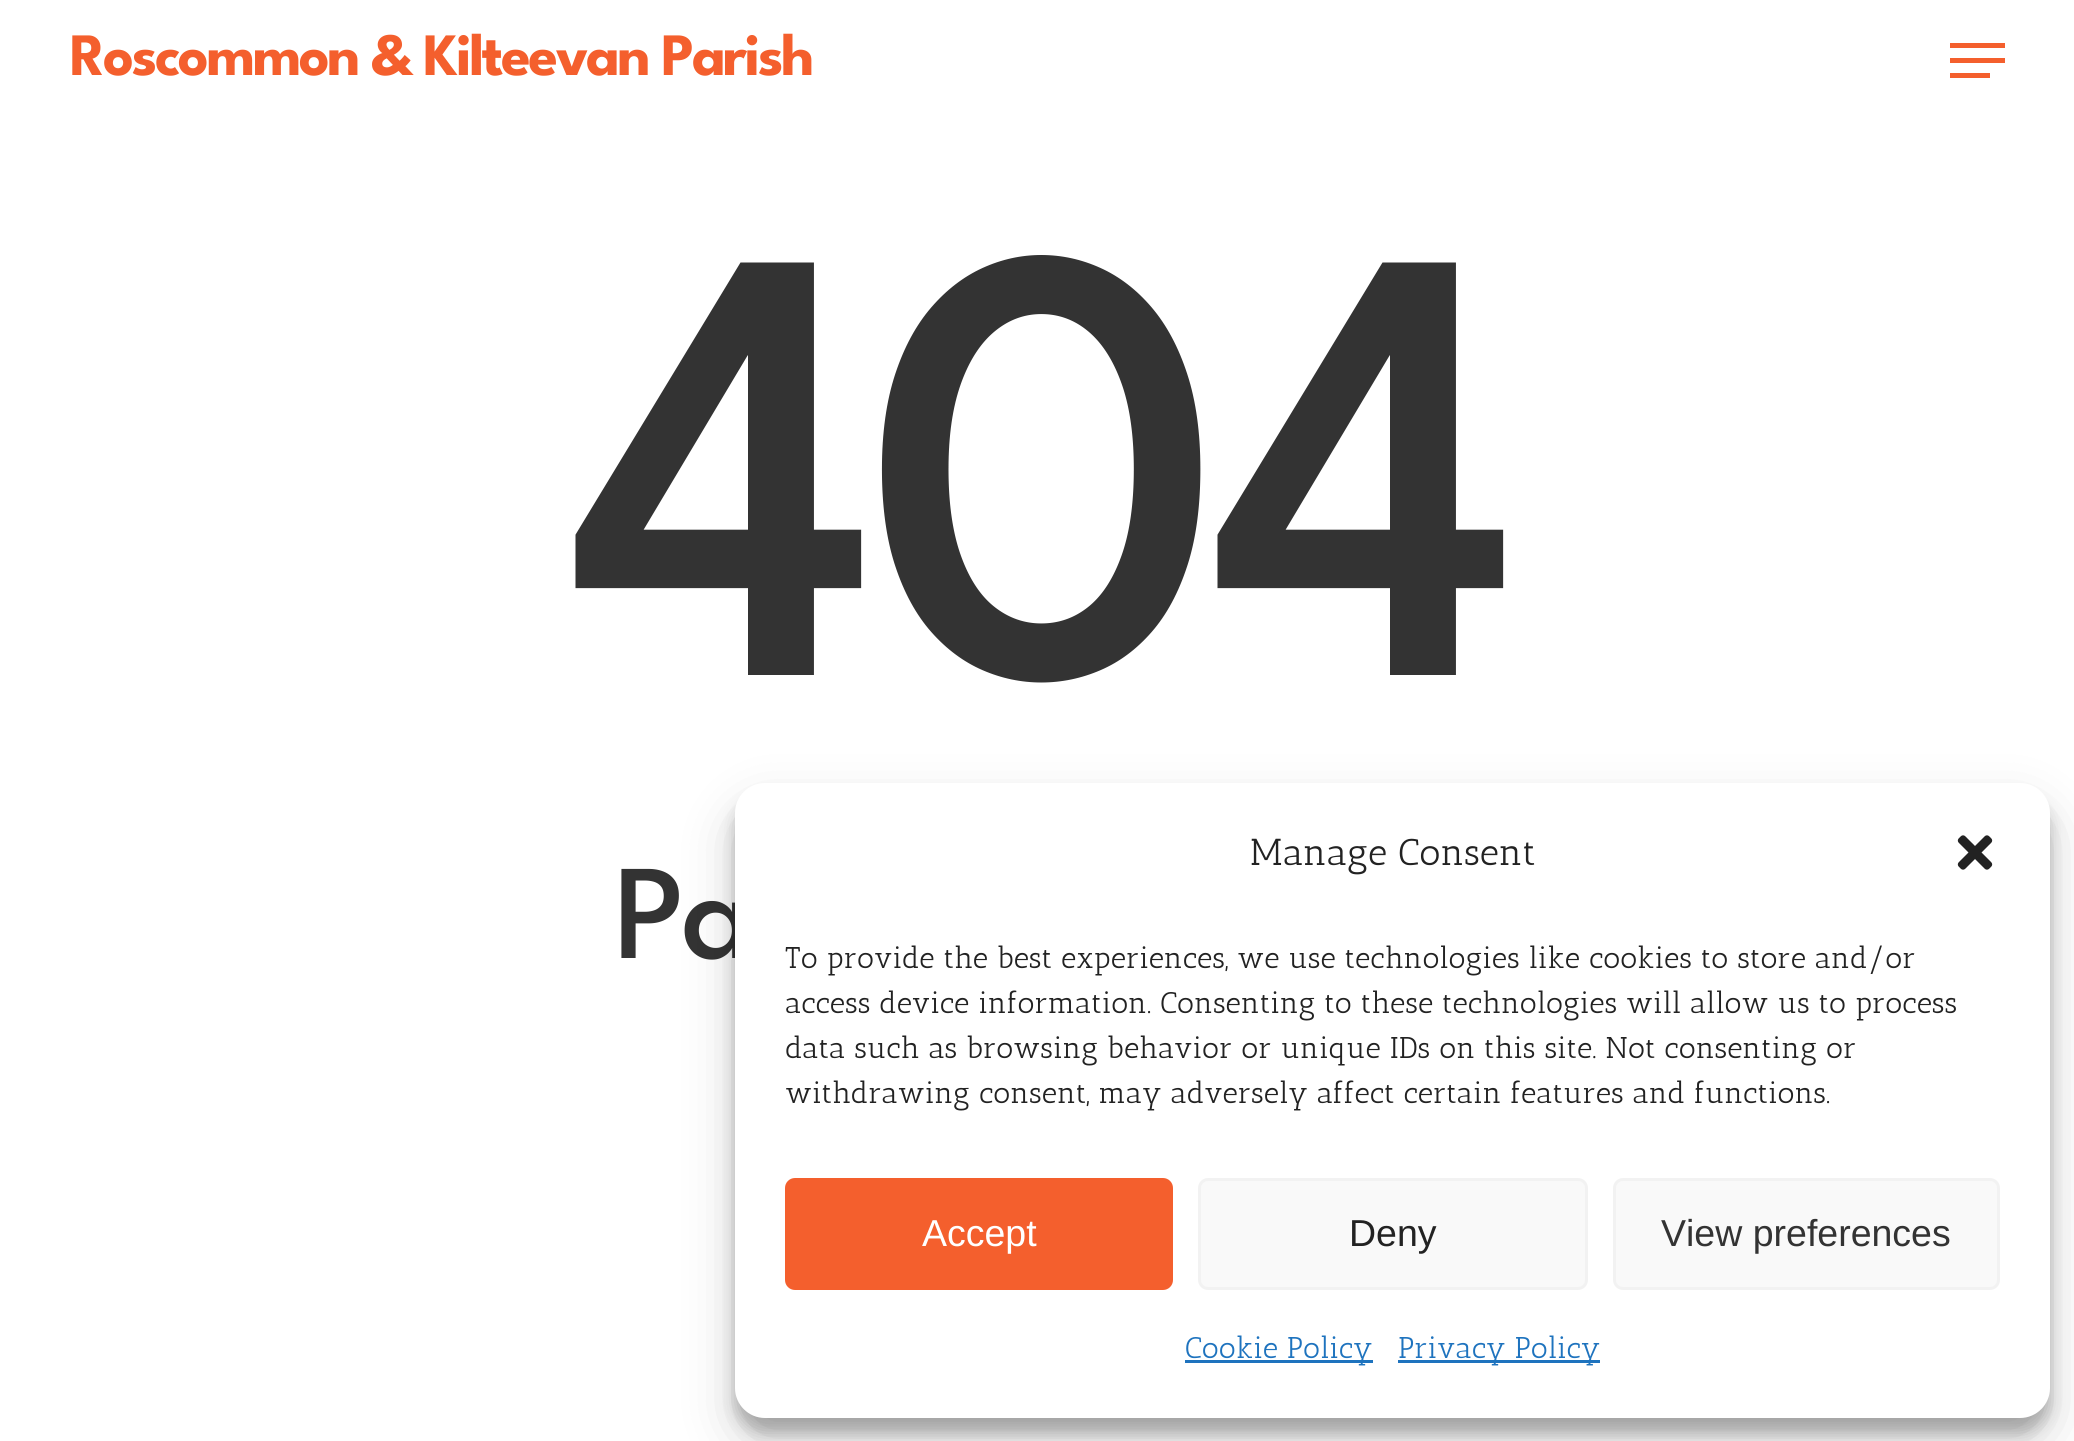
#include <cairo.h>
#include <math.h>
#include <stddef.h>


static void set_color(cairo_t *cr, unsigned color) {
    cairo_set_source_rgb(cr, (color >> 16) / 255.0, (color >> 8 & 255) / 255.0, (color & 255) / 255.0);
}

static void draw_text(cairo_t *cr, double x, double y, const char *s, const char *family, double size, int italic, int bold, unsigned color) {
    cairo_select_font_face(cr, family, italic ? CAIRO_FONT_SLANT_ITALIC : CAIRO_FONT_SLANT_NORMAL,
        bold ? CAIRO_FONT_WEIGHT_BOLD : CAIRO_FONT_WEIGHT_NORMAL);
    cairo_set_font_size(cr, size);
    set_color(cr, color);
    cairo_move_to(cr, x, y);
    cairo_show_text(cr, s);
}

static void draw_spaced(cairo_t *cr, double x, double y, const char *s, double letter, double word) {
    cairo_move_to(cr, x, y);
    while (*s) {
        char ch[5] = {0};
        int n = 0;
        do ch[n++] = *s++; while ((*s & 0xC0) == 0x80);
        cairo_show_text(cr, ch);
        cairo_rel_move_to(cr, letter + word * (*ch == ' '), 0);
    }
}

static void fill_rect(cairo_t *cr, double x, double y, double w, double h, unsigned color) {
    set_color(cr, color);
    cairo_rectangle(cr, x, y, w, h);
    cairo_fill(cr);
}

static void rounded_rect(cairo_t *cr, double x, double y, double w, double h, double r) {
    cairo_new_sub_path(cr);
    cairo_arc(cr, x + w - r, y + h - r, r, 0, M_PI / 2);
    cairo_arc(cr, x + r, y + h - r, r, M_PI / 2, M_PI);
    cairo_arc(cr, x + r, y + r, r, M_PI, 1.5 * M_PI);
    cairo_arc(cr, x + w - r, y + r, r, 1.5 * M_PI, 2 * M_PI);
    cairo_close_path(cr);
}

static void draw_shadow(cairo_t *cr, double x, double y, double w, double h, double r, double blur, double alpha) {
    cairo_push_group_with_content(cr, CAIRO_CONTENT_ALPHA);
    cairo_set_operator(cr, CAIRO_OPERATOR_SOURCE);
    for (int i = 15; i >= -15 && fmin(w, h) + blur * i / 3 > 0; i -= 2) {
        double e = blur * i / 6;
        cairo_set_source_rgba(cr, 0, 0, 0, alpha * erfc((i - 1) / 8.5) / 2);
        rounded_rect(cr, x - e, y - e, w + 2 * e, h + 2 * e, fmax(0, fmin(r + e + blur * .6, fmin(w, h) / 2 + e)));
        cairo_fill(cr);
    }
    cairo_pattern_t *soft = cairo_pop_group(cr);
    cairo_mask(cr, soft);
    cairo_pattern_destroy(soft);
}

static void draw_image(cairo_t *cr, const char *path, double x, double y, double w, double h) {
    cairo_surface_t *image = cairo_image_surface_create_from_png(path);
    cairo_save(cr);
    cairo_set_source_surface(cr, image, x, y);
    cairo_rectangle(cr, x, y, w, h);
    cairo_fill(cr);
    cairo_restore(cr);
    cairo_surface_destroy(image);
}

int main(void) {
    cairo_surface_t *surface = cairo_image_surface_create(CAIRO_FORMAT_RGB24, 2074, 1441);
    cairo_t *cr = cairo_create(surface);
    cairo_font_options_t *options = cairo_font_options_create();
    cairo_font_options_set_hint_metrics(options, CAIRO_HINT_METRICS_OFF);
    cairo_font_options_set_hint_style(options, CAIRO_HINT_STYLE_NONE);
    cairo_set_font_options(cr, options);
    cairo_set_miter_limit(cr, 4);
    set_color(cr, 0xFFFFFF);
    cairo_paint(cr);
    cairo_select_font_face(cr, "League Spartan", CAIRO_FONT_SLANT_NORMAL, CAIRO_FONT_WEIGHT_BOLD);
    cairo_set_font_size(cr, 60);
    set_color(cr, 0xF45F2D);
    draw_spaced(cr, 70, 75, "Roscommon & Kilteevan Parish", -2.5, 0);
    fill_rect(cr, 1950, 43, 55, 5, 0xF45F2D);
    fill_rect(cr, 1950, 73, 40, 5, 0xF45F2D);
    fill_rect(cr, 1950, 58, 55, 5, 0xF45F2D);
    cairo_select_font_face(cr, "League Spartan Medium", CAIRO_FONT_SLANT_NORMAL, CAIRO_FONT_WEIGHT_NORMAL);
    cairo_set_font_size(cr, 625);
    set_color(cr, 0x333333);
    draw_spaced(cr, 568, 675, "404", -19, 0);
    cairo_set_font_size(cr, 135);
    draw_spaced(cr, 614, 958, "Pa", -4, 0);
    set_color(cr, 0x000000);
    draw_shadow(cr, 735, 798, 1315, 635, 30, 7.5, 0.23);
    draw_shadow(cr, 735, 808, 1315, 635, 30, 25, 0.19);
    set_color(cr, 0xFFFFFF);
    rounded_rect(cr, 735, 783, 1315, 635, 30);
    cairo_fill(cr);
    draw_text(cr, 1250, 865, "Manage Consent", "Antic Slab", 37.5, 0, 0, 0x222222);
    draw_image(cr, "assets/img1.png", 1957, 835, 36, 35);
    draw_text(cr, 785, 968, "To provide the best experiences, we use technologies like cookies to store and/or", "Antic Slab", 30, 0, 0, 0x222222);
    draw_text(cr, 785, 1013, "access device information. Consenting to these technologies will allow us to process", "Antic Slab", 30, 0, 0, 0x222222);
    draw_text(cr, 785, 1058, "data such as browsing behavior or unique IDs on this site. Not consenting or", "Antic Slab", 30, 0, 0, 0x222222);
    draw_text(cr, 785, 1103, "withdrawing consent, may adversely affect certain features and functions.", "Antic Slab", 30, 0, 0, 0x222222);
    set_color(cr, 0xF45F2D);
    rounded_rect(cr, 786.5, 1179.5, 385, 109, 8.5);
    cairo_fill_preserve(cr);
    cairo_set_line_width(cr, 3);
    cairo_stroke(cr);
    draw_text(cr, 922, 1246, "Accept", "Liberation Sans", 37.5, 0, 0, 0xFFFFFF);
    set_color(cr, 0xF9F9F9);
    rounded_rect(cr, 1199.5, 1179.5, 387, 109, 8.5);
    cairo_fill_preserve(cr);
    set_color(cr, 0xF2F2F2);
    cairo_stroke(cr);
    draw_text(cr, 1349, 1246, "Deny", "Liberation Sans", 37.5, 0, 0, 0x222222);
    set_color(cr, 0xF9F9F9);
    rounded_rect(cr, 1614.5, 1179.5, 384, 109, 8.5);
    cairo_fill_preserve(cr);
    set_color(cr, 0xF2F2F2);
    cairo_stroke(cr);
    draw_text(cr, 1661, 1246, "View preferences", "Liberation Sans", 37.5, 0, 0, 0x333333);
    fill_rect(cr, 1185, 1360, 188, 3, 0x1E73BE);
    draw_text(cr, 1185, 1358, "Cookie Policy", "Antic Slab", 30, 0, 0, 0x1E73BE);
    fill_rect(cr, 1398, 1360, 202, 3, 0x1E73BE);
    draw_text(cr, 1398, 1358, "Privacy Policy", "Antic Slab", 30, 0, 0, 0x1E73BE);
    cairo_surface_write_to_png(surface, "output.png");
    cairo_font_options_destroy(options);
    cairo_destroy(cr);
    cairo_surface_destroy(surface);
    return 0;
}
